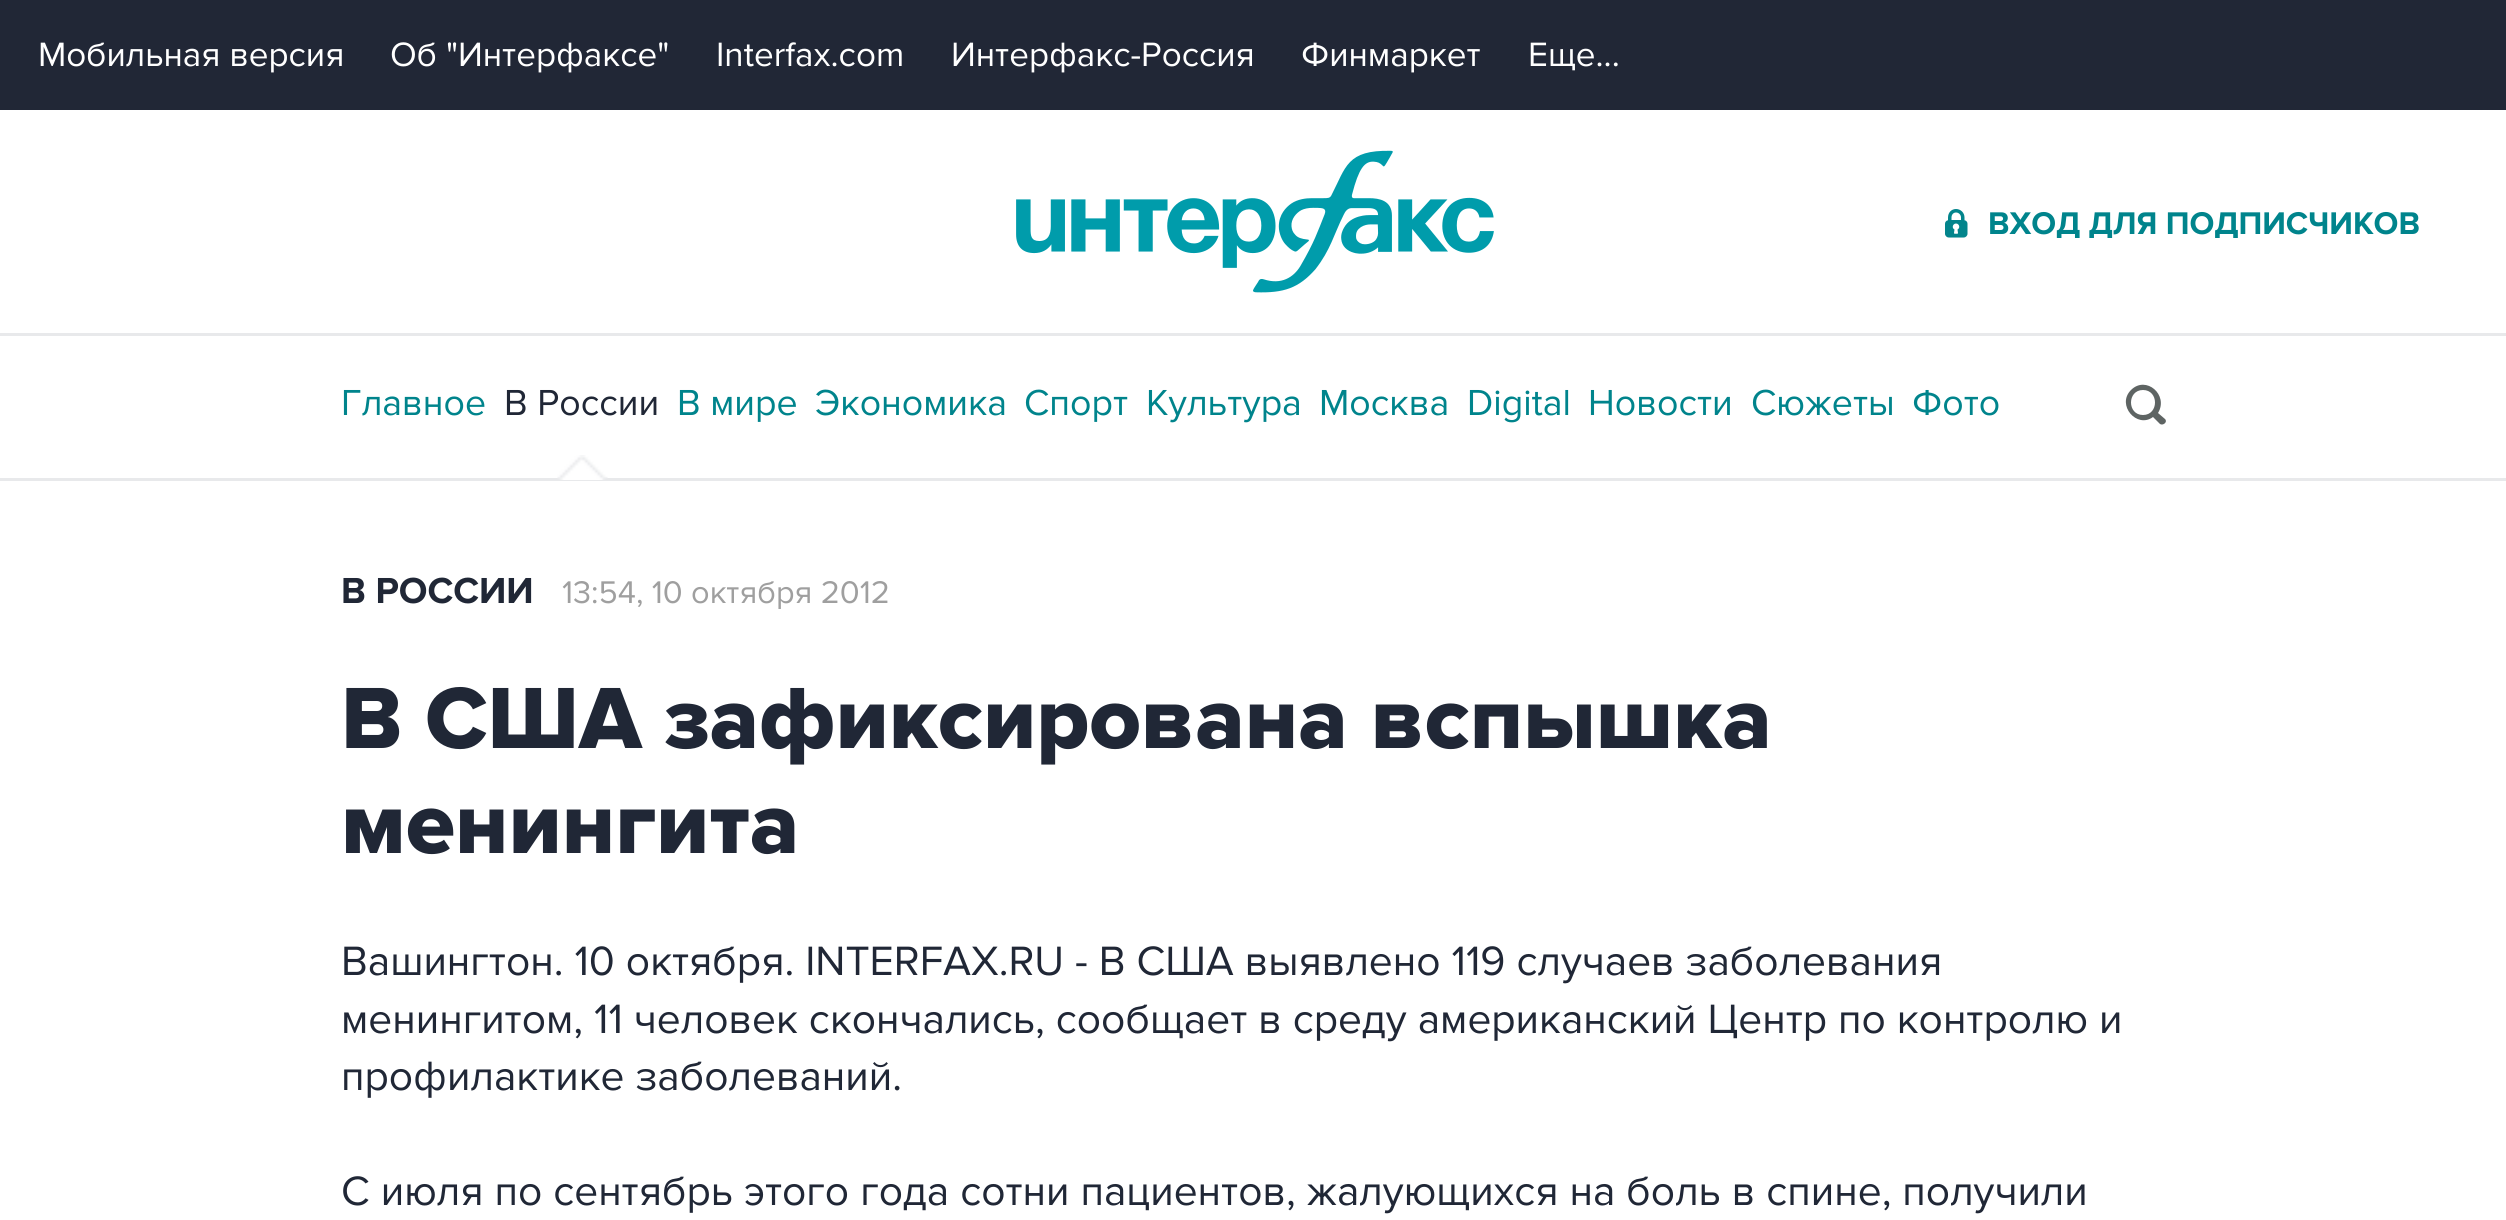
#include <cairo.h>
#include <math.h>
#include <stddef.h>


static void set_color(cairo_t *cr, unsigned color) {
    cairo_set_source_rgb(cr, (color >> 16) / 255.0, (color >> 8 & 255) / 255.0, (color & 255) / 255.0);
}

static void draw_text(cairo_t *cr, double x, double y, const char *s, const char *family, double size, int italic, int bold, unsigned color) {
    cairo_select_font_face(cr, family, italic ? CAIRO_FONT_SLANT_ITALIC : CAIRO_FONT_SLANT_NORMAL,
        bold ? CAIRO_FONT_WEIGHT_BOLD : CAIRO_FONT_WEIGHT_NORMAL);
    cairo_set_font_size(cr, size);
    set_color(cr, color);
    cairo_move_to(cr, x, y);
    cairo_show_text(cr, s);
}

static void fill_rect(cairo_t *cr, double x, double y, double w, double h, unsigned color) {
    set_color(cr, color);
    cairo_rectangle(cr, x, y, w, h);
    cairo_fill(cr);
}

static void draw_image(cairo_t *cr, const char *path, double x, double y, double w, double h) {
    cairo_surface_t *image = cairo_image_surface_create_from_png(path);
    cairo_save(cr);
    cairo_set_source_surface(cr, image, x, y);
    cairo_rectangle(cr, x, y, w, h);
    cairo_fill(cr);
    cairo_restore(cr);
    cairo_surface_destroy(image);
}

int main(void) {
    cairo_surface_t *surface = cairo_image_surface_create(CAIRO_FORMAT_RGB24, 2506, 1220);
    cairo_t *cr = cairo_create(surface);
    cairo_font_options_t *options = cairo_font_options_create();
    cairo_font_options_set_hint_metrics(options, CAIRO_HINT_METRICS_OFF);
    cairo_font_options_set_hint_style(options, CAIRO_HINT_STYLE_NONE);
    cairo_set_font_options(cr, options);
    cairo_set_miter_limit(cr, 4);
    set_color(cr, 0xFFFFFF);
    cairo_paint(cr);
    fill_rect(cr, 0, 478, 2506, 3, 0xE8E9EB);
    fill_rect(cr, 0, 0, 2506, 110, 0x212736);
    draw_text(cr, 38, 66, "Мобильная версия", "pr", 35, 0, 0, 0xFFFFFF);
    draw_text(cr, 390, 66, "Об \"Интерфаксе\"", "pr", 35, 0, 0, 0xFFFFFF);
    draw_text(cr, 716, 66, "Interfax.com", "pr", 35, 0, 0, 0xFFFFFF);
    draw_text(cr, 951, 66, "Интерфакс-Россия", "pr", 35, 0, 0, 0xFFFFFF);
    draw_text(cr, 1301, 66, "Финмаркет", "pr", 35, 0, 0, 0xFFFFFF);
    draw_text(cr, 1528, 66, "Еще...", "pr", 35, 0, 0, 0xFFFFFF);
    fill_rect(cr, 0, 333, 2506, 3, 0xE8E9EB);
    draw_image(cr, "assets/img1.png", 1016, 150, 478, 143);
    draw_image(cr, "assets/img2.png", 1945, 209, 23, 29);
    draw_text(cr, 1988, 234, "ВХОД ДЛЯ ПОДПИСЧИКОВ", "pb", 32.5, 0, 1, 0x00848C);
    draw_text(cr, 341, 415, "Главное", "pr", 37.5, 0, 0, 0x00848C);
    draw_text(cr, 504, 415, "В России", "pr", 37.5, 0, 0, 0x202736);
    draw_image(cr, "assets/img3.png", 557, 455, 51, 25);
    draw_text(cr, 677, 415, "В мире", "pr", 37.5, 0, 0, 0x00848C);
    draw_text(cr, 815, 415, "Экономика", "pr", 37.5, 0, 0, 0x00848C);
    draw_text(cr, 1024, 415, "Спорт", "pr", 37.5, 0, 0, 0x00848C);
    draw_text(cr, 1146, 415, "Культура", "pr", 37.5, 0, 0, 0x00848C);
    draw_text(cr, 1319, 415, "Москва", "pr", 37.5, 0, 0, 0x00848C);
    draw_text(cr, 1467, 415, "Digital", "pr", 37.5, 0, 0, 0x00848C);
    draw_text(cr, 1588, 415, "Новости", "pr", 37.5, 0, 0, 0x00848C);
    draw_text(cr, 1751, 415, "Сюжеты", "pr", 37.5, 0, 0, 0x00848C);
    draw_text(cr, 1912, 415, "Фото", "pr", 37.5, 0, 0, 0x00848C);
    set_color(cr, 0x5E6463);
    cairo_new_path(cr);
    cairo_move_to(cr, 2165, 419);
    cairo_line_to(cr, 2158, 413);
    cairo_curve_to(cr, 2169, 395, 2146, 375, 2131, 390);
    cairo_curve_to(cr, 2116, 405, 2137, 429, 2153, 417);
    cairo_line_to(cr, 2160, 424);
    cairo_curve_to(cr, 2163, 426, 2168, 422, 2165, 419);
    cairo_close_path(cr);
    cairo_move_to(cr, 2143, 415);
    cairo_curve_to(cr, 2127, 415, 2127, 390, 2143, 390);
    cairo_curve_to(cr, 2159, 390, 2159, 415, 2143, 415);
    cairo_close_path(cr);
    cairo_fill(cr);
    draw_text(cr, 341, 603, "В РОССИИ", "pb", 37.5, 0, 1, 0x202736);
    draw_text(cr, 562, 603, "13:54, 10 октября 2012", "pr", 32.5, 0, 0, 0x9F9F9F);
    draw_text(cr, 341, 748, "В США зафиксирована вспышка", "Proxima Nova ExtraBold", 90, 0, 0, 0x202736);
    draw_text(cr, 341, 853, "менингита", "Proxima Nova ExtraBold", 90, 0, 0, 0x202736);
    draw_text(cr, 341, 975, "Вашингтон. 10 октября. INTERFAX.RU - В США выявлено 119 случаев заболевания", "pr", 42.5, 0, 0, 0x202736);
    draw_text(cr, 341, 1033, "менингитом, 11 человек скончались, сообщает в среду американский Центр по контролю и", "pr", 42.5, 0, 0, 0x202736);
    draw_text(cr, 341, 1090, "профилактике заболеваний.", "pr", 42.5, 0, 0, 0x202736);
    draw_text(cr, 341, 1205, "С июля по сентябрь этого года сотни пациентов, жалующихся на боль в спине, получили", "pr", 42.5, 0, 0, 0x202736);
    cairo_surface_write_to_png(surface, "output.png");
    cairo_font_options_destroy(options);
    cairo_destroy(cr);
    cairo_surface_destroy(surface);
    return 0;
}
